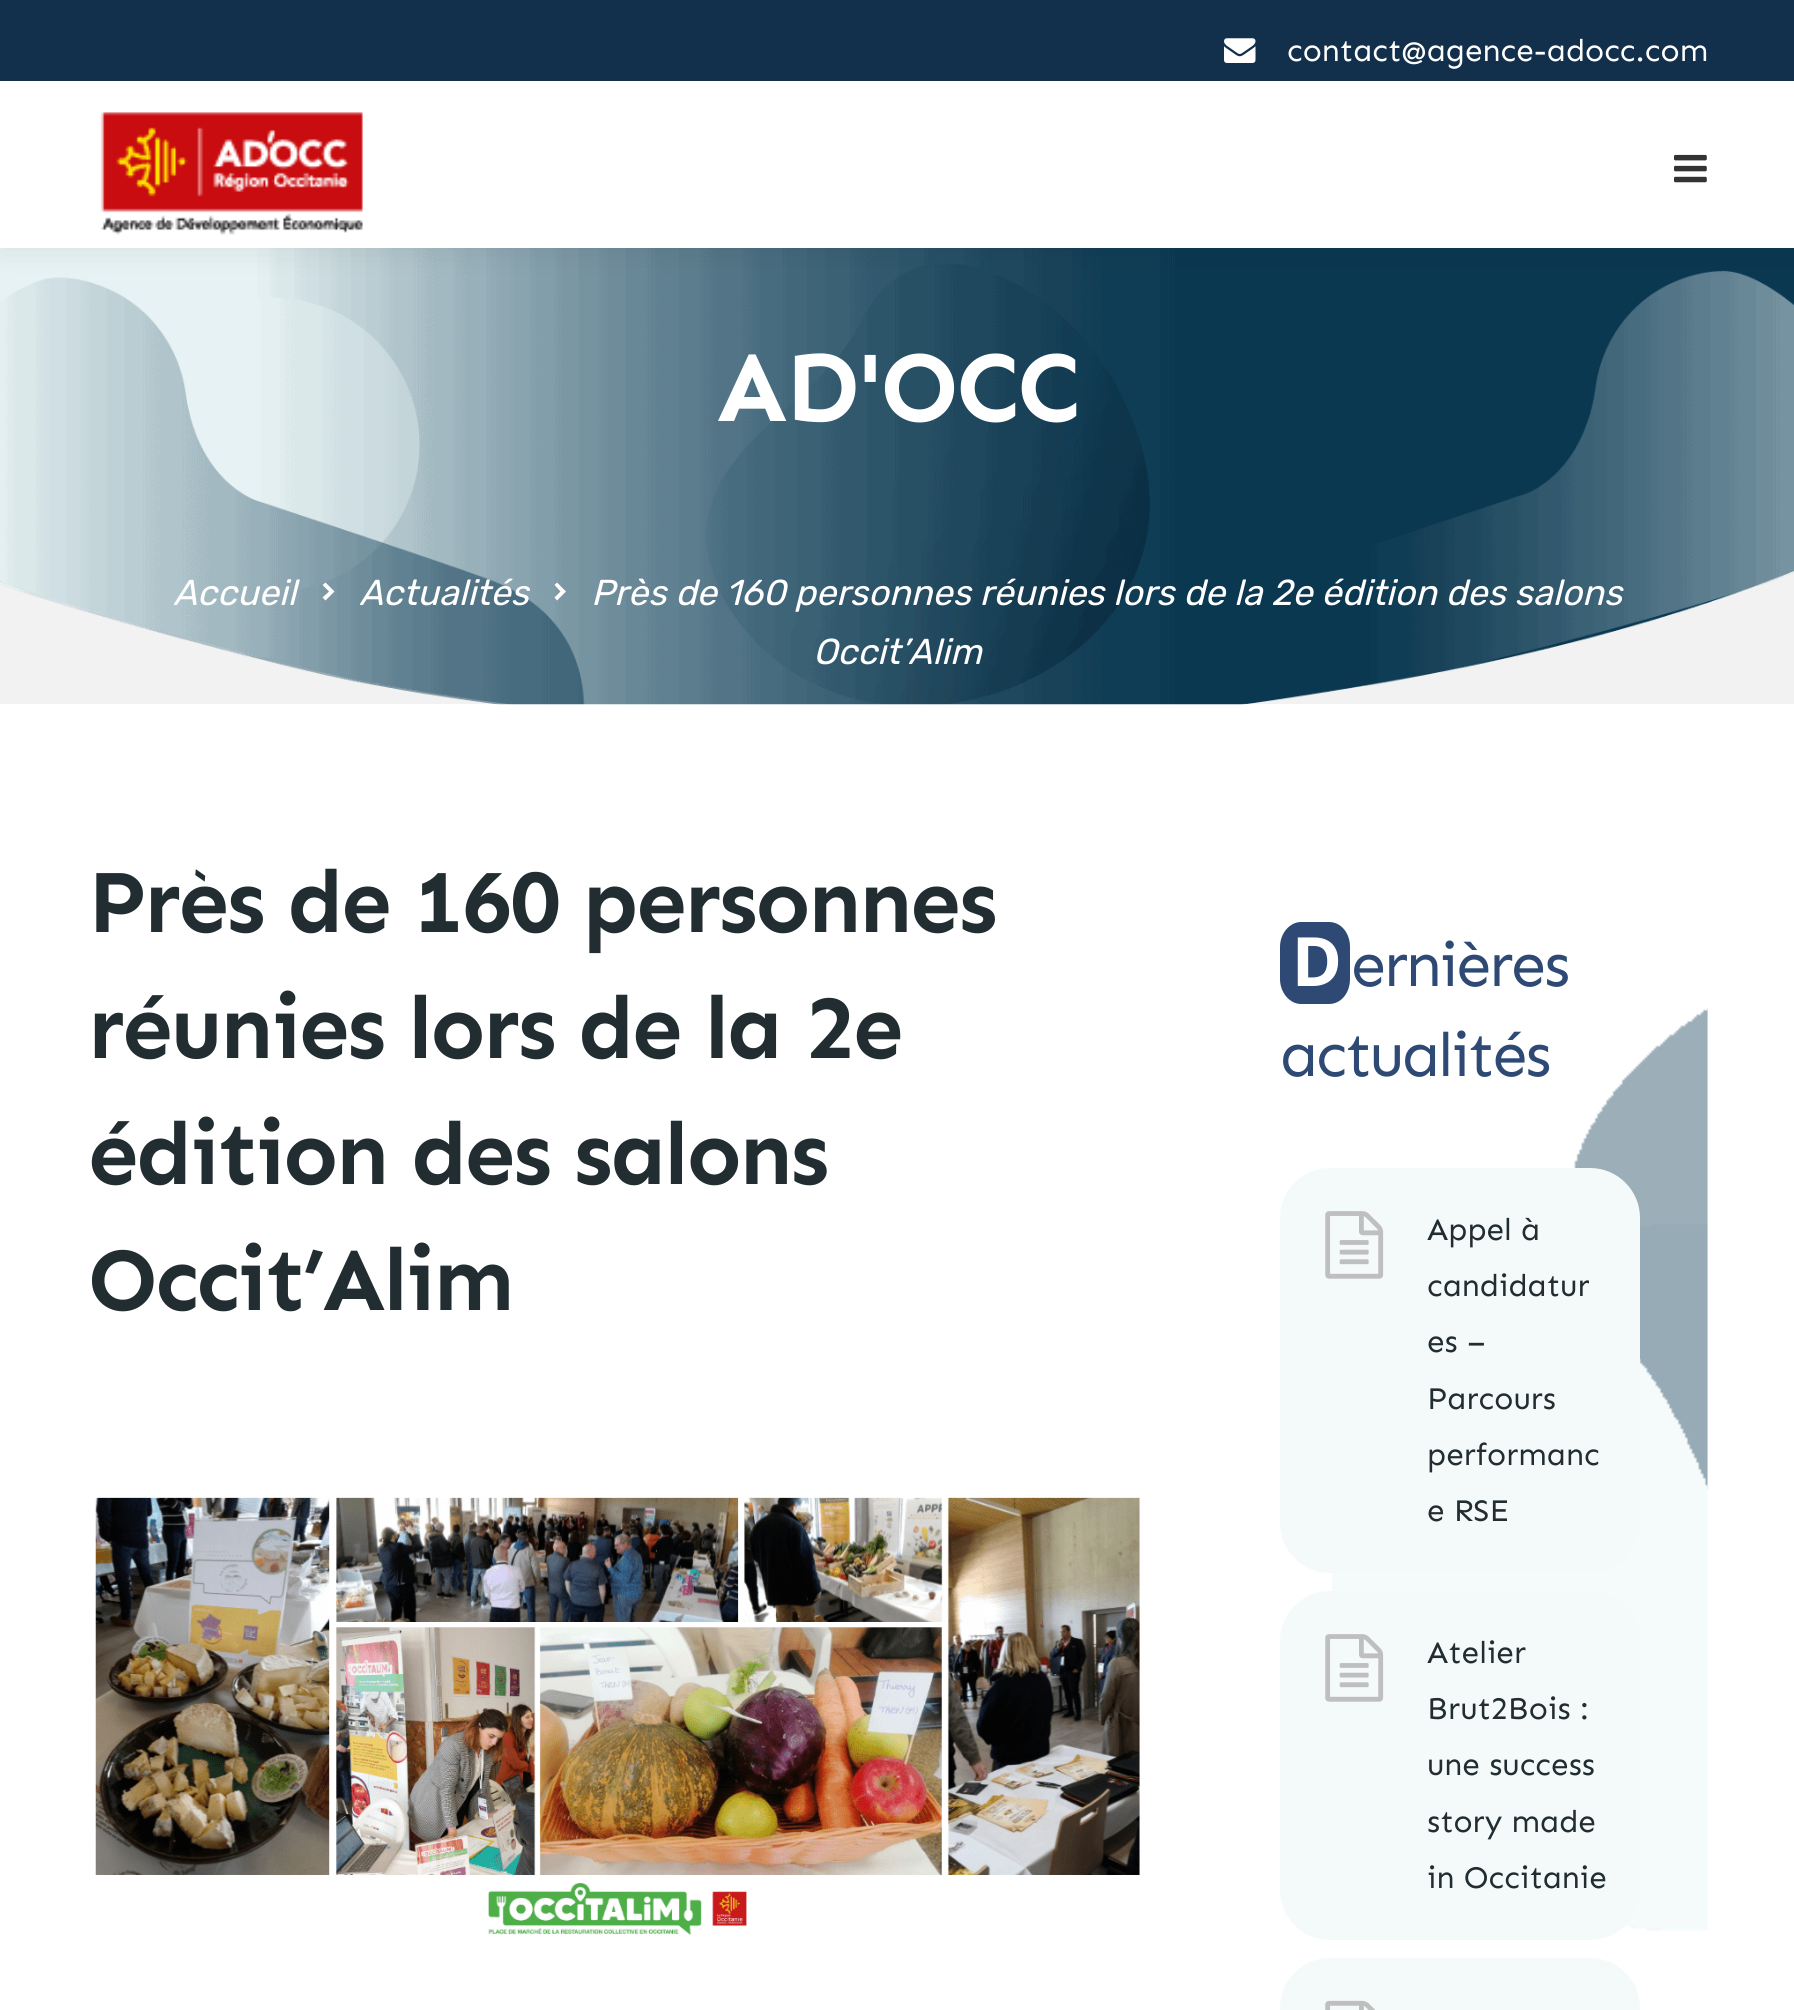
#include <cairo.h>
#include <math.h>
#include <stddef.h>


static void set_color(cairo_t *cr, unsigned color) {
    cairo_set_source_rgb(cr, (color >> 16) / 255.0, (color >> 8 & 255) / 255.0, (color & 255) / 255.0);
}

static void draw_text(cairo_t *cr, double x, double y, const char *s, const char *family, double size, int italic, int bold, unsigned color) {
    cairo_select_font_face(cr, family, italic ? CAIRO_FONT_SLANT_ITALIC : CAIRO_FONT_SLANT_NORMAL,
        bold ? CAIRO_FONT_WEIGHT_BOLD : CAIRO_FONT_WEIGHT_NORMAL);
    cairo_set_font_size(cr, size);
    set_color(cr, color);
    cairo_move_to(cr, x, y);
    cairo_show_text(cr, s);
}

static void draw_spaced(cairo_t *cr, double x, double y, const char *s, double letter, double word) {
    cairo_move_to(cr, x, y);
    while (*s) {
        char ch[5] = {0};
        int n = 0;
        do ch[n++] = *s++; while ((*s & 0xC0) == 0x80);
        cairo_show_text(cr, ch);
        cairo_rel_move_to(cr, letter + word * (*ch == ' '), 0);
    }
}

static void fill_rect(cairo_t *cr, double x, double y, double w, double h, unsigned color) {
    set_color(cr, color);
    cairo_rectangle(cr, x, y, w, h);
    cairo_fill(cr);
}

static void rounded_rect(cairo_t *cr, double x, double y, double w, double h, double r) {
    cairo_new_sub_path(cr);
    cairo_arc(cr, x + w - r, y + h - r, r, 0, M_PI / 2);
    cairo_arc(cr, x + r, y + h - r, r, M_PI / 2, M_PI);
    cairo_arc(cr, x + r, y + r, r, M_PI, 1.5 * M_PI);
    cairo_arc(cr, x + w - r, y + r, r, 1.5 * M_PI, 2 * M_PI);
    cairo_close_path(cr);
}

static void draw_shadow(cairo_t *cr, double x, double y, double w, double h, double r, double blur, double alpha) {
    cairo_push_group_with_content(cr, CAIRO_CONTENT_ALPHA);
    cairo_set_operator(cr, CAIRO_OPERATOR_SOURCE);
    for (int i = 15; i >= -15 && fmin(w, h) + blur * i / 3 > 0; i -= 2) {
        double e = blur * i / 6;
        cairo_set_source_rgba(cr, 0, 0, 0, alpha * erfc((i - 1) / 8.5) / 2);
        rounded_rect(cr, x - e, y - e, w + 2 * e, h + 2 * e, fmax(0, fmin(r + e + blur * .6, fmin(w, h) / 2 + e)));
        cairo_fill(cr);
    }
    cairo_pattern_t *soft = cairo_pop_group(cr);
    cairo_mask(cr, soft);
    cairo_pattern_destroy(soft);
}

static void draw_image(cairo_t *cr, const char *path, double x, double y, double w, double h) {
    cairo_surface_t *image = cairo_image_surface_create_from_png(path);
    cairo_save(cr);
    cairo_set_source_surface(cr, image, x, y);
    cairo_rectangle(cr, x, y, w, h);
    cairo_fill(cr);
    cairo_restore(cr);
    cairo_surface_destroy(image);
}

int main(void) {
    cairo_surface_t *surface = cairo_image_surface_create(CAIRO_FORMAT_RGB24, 1794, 2010);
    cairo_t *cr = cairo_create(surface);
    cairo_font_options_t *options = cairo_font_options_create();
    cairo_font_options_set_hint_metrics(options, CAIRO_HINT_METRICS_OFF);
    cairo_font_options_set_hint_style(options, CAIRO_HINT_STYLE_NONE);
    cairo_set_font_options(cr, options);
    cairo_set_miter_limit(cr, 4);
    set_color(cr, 0xFFFFFF);
    cairo_paint(cr);
    fill_rect(cr, 0, 248, 1794, 456, 0xF2F2F2);
    draw_image(cr, "assets/img4.png", 0, 248, 1794, 457);
    set_color(cr, 0x000000);
    draw_shadow(cr, 0, 0, 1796, 248, 0, 17, 0.08);
    fill_rect(cr, 0, 0, 1794, 81, 0x12304C);
    draw_image(cr, "assets/img1.png", 1224, 38, 32, 25);
    draw_text(cr, 1287, 61, "contact@agence-adocc.com", "Sen", 31.5, 0, 0, 0xFFFFFF);
    fill_rect(cr, 0, 81, 1794, 167, 0xFFFFFF);
    draw_image(cr, "assets/img2.png", 100, 112, 263, 123);
    draw_image(cr, "assets/img3.png", 1674, 154, 33, 29);
    cairo_select_font_face(cr, "Sen", CAIRO_FONT_SLANT_NORMAL, CAIRO_FONT_WEIGHT_BOLD);
    cairo_set_font_size(cr, 101);
    draw_spaced(cr, 717, 421, "AD'OCC", -2.25, 0);
    draw_text(cr, 173, 605, "Accueil", "Rubik", 36, 1, 0, 0xFFFFFF);
    cairo_new_path(cr);
    cairo_move_to(cr, 334.5, 591.5);
    cairo_line_to(cr, 325.5, 600.5);
    cairo_line_to(cr, 322.5, 597.5);
    cairo_line_to(cr, 329, 591.5);
    cairo_line_to(cr, 322.5, 585);
    cairo_line_to(cr, 325.5, 582.5);
    cairo_close_path(cr);
    cairo_fill(cr);
    draw_text(cr, 359, 605, "Actualités", "Rubik", 36, 1, 0, 0xFFFFFF);
    cairo_new_path(cr);
    cairo_move_to(cr, 566, 591.5);
    cairo_line_to(cr, 557, 600.5);
    cairo_line_to(cr, 554.5, 597.5);
    cairo_line_to(cr, 560.5, 591.5);
    cairo_line_to(cr, 554.5, 585);
    cairo_line_to(cr, 557, 582.5);
    cairo_close_path(cr);
    cairo_fill(cr);
    draw_text(cr, 591, 605, "Près de 160 personnes réunies lors de la 2e édition des salons", "Rubik", 36, 1, 0, 0xFFFFFF);
    draw_text(cr, 813, 664, "Occit’Alim", "Rubik", 36, 1, 0, 0xFFFFFF);
    cairo_select_font_face(cr, "Sen", CAIRO_FONT_SLANT_NORMAL, CAIRO_FONT_WEIGHT_BOLD);
    cairo_set_font_size(cr, 90);
    set_color(cr, 0x212D31);
    draw_spaced(cr, 88, 932, "Près de 160 personnes", -2.25, 0);
    draw_spaced(cr, 88, 1058, "réunies lors de la 2e", -2.25, 0);
    draw_spaced(cr, 88, 1184, "édition des salons", -2.25, 0);
    draw_spaced(cr, 88, 1310, "Occit’Alim", -2.25, 0);
    draw_image(cr, "assets/img5.png", 95, 1497, 1045, 438);
    draw_image(cr, "assets/img6.png", 1332, 1007, 376, 924);
    set_color(cr, 0x2D4974);
    cairo_new_path(cr);
    cairo_move_to(cr, 1301, 922);
    cairo_line_to(cr, 1329, 922);
    cairo_curve_to(cr, 1341, 922, 1350, 933, 1350, 947);
    cairo_line_to(cr, 1350, 979);
    cairo_curve_to(cr, 1350, 993, 1341, 1004, 1329, 1004);
    cairo_line_to(cr, 1301, 1004);
    cairo_curve_to(cr, 1290, 1004, 1280, 993, 1280, 979);
    cairo_line_to(cr, 1280, 947);
    cairo_curve_to(cr, 1280, 933, 1290, 922, 1301, 922);
    cairo_close_path(cr);
    cairo_fill(cr);
    cairo_select_font_face(cr, "Noto Sans", CAIRO_FONT_SLANT_NORMAL, CAIRO_FONT_WEIGHT_BOLD);
    cairo_set_font_size(cr, 68);
    set_color(cr, 0xFFFFFF);
    draw_spaced(cr, 1292, 986, "D", -2.25, 0);
    cairo_select_font_face(cr, "Sen", CAIRO_FONT_SLANT_NORMAL, CAIRO_FONT_WEIGHT_NORMAL);
    cairo_set_font_size(cr, 63);
    set_color(cr, 0x2D4974);
    draw_spaced(cr, 1351, 986, "ernières", -2.25, 0);
    draw_spaced(cr, 1280, 1076, "actualités", -2.25, 0);
    set_color(cr, 0xF4FAFA);
    rounded_rect(cr, 1280, 1168, 360, 405, 50);
    cairo_fill(cr);
    draw_image(cr, "assets/img7.png", 1325, 1211, 59, 68);
    draw_text(cr, 1427, 1240, "Appel à", "Sen", 31.5, 0, 0, 0x212D31);
    draw_text(cr, 1427, 1296, "candidatur", "Sen", 31.5, 0, 0, 0x212D31);
    draw_text(cr, 1427, 1352, "es –", "Sen", 31.5, 0, 0, 0x212D31);
    draw_text(cr, 1427, 1409, "Parcours", "Sen", 31.5, 0, 0, 0x212D31);
    draw_text(cr, 1427, 1465, "performanc", "Sen", 31.5, 0, 0, 0x212D31);
    draw_text(cr, 1427, 1521, "e RSE", "Sen", 31.5, 0, 0, 0x212D31);
    set_color(cr, 0xF4FAFA);
    rounded_rect(cr, 1280, 1591, 360, 349, 50);
    cairo_fill(cr);
    draw_image(cr, "assets/img7.png", 1325, 1634, 59, 68);
    draw_text(cr, 1427, 1663, "Atelier", "Sen", 31.5, 0, 0, 0x212D31);
    draw_text(cr, 1427, 1719, "Brut2Bois :", "Sen", 31.5, 0, 0, 0x212D31);
    draw_text(cr, 1427, 1775, "une success", "Sen", 31.5, 0, 0, 0x212D31);
    draw_text(cr, 1427, 1832, "story made", "Sen", 31.5, 0, 0, 0x212D31);
    draw_text(cr, 1427, 1888, "in Occitanie", "Sen", 31.5, 0, 0, 0x212D31);
    set_color(cr, 0xF4FAFA);
    rounded_rect(cr, 1280, 1958, 360, 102, 50);
    cairo_fill(cr);
    draw_image(cr, "assets/img8.png", 1325, 2000, 50, 10);
    cairo_surface_write_to_png(surface, "output.png");
    cairo_font_options_destroy(options);
    cairo_destroy(cr);
    cairo_surface_destroy(surface);
    return 0;
}
